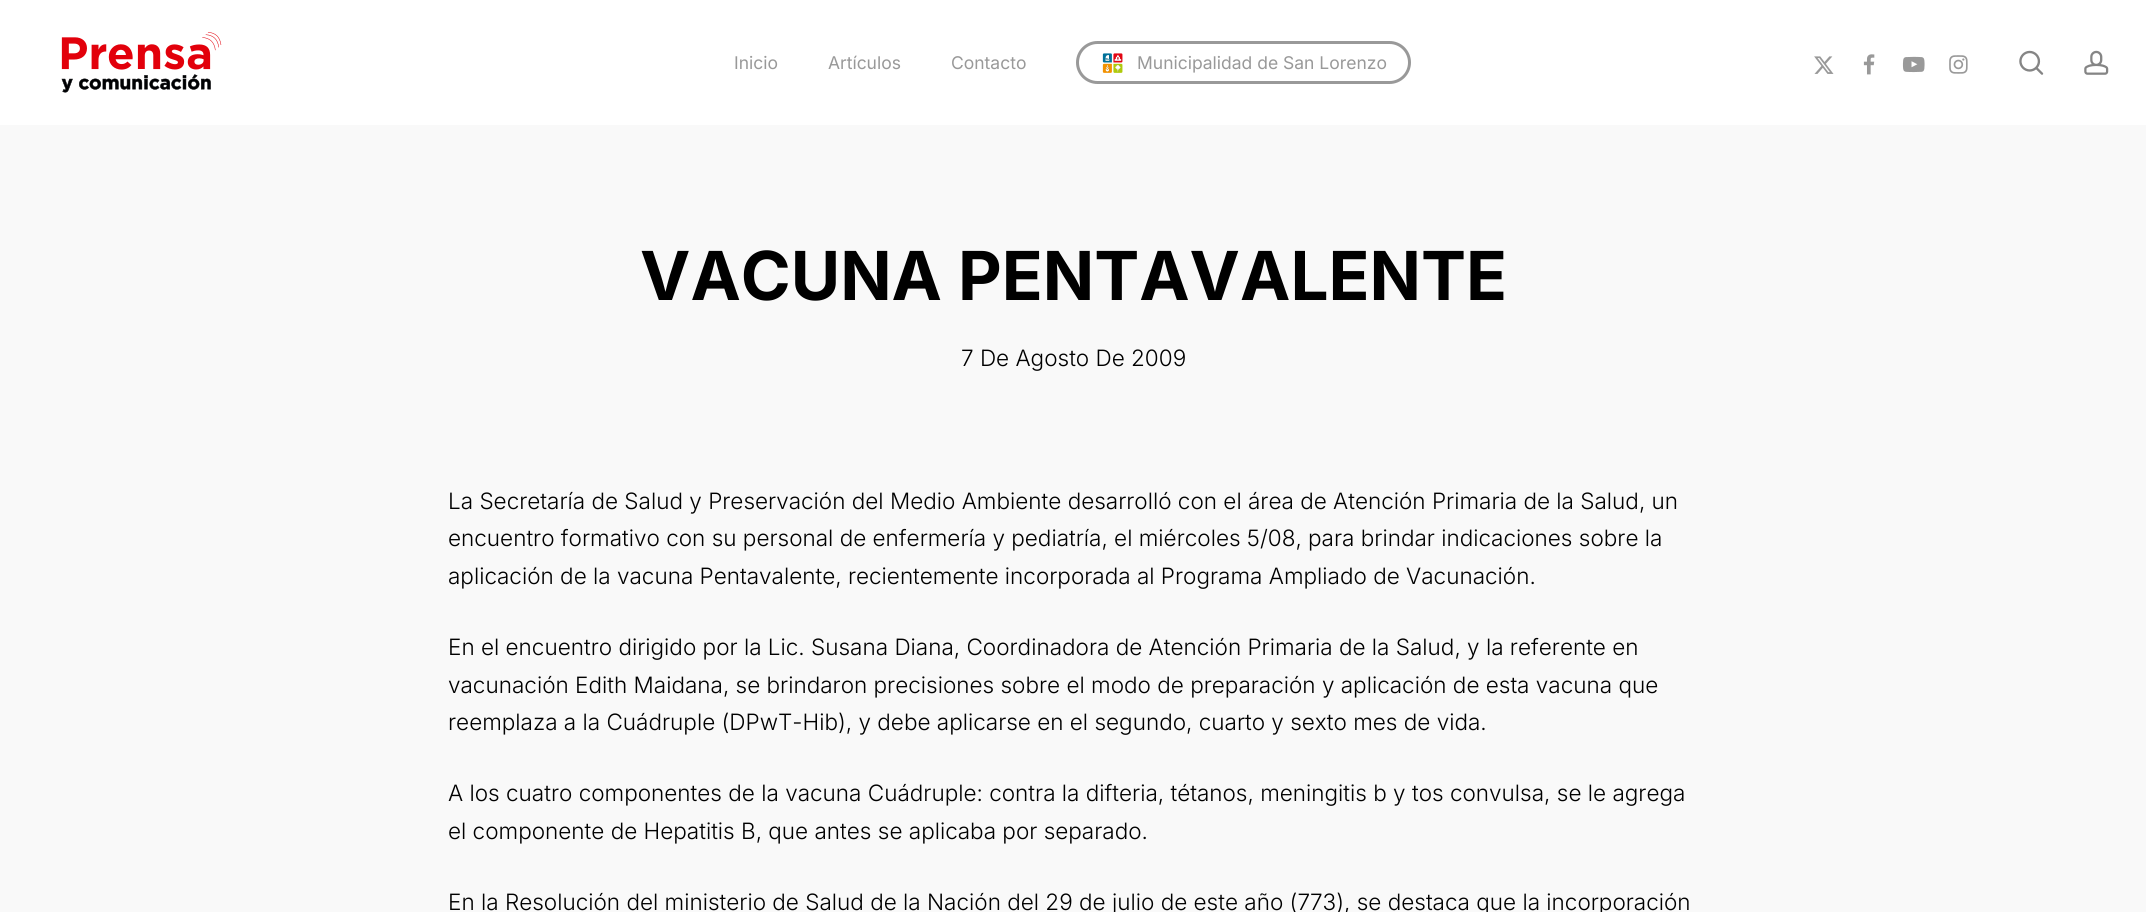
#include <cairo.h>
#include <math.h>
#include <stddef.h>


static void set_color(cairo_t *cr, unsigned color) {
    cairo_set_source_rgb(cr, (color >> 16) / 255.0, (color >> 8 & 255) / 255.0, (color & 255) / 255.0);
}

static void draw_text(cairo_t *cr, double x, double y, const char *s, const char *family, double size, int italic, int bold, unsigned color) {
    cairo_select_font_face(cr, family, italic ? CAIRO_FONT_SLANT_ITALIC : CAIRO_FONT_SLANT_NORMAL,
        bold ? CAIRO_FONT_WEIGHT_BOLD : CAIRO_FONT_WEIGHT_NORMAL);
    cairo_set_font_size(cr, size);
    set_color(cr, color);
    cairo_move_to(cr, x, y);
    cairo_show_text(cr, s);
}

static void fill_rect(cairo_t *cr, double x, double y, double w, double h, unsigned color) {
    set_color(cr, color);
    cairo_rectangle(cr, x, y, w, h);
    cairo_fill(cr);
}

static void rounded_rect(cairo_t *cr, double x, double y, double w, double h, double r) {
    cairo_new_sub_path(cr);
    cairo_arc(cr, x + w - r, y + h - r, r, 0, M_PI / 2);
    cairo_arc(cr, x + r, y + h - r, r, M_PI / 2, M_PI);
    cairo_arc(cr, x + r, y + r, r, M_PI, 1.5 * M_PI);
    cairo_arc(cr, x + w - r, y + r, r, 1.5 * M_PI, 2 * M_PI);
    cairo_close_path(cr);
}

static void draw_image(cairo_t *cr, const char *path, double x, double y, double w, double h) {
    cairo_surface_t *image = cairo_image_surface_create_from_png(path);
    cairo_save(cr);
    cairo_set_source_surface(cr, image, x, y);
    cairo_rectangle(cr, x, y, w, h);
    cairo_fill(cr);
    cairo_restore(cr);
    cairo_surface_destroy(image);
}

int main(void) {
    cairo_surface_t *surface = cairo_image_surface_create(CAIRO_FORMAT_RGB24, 2146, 912);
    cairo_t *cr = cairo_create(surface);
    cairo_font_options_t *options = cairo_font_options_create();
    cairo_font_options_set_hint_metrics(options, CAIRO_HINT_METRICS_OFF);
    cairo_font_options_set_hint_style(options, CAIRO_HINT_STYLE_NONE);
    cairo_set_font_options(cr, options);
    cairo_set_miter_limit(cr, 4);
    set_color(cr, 0xF9F9F9);
    cairo_paint(cr);
    fill_rect(cr, 0, 0, 2146, 125, 0xFFFFFF);
    draw_image(cr, "assets/img1.png", 61, 32, 161, 61);
    draw_text(cr, 734, 69, "Inicio", "Inter", 17.5, 0, 0, 0x999999);
    draw_text(cr, 828, 69, "Artículos", "Inter", 17.5, 0, 0, 0x999999);
    draw_text(cr, 951, 69, "Contacto", "Inter", 17.5, 0, 0, 0x999999);
    rounded_rect(cr, 1077.5, 42.5, 332, 40, 20);
    cairo_set_line_width(cr, 3);
    cairo_stroke(cr);
    draw_image(cr, "assets/img2.png", 1102, 53, 21, 20);
    draw_text(cr, 1137, 69, "Municipalidad de San Lorenzo", "Inter", 17.5, 0, 0, 0x999999);
    draw_image(cr, "assets/img3.png", 1814, 56, 20, 18);
    draw_image(cr, "assets/img4.png", 1863, 54, 12, 21);
    draw_image(cr, "assets/img5.png", 1902, 56, 23, 17);
    draw_image(cr, "assets/img6.png", 1949, 55, 19, 19);
    draw_image(cr, "assets/img7.png", 2019, 50, 25, 25);
    draw_image(cr, "assets/img8.png", 2084, 50, 25, 25);
    draw_text(cr, 640, 300, "VACUNA PENTAVALENTE", "Inter", 67.5, 0, 1, 0x000000);
    draw_text(cr, 961, 366, "7 De Agosto De 2009", "Inter Light", 22.5, 0, 0, 0x000000);
    draw_text(cr, 448, 509, "La Secretaría de Salud y Preservación del Medio Ambiente desarrolló con el área de Atención Primaria de la Salud, un", "Inter Light", 22.5, 0, 0, 0x000000);
    draw_text(cr, 448, 546, "encuentro formativo con su personal de enfermería y pediatría, el miércoles 5/08, para brindar indicaciones sobre la", "Inter Light", 22.5, 0, 0, 0x000000);
    draw_text(cr, 448, 584, "aplicación de la vacuna Pentavalente, recientemente incorporada al Programa Ampliado de Vacunación.", "Inter Light", 22.5, 0, 0, 0x000000);
    draw_text(cr, 448, 655, "En el encuentro dirigido por la Lic. Susana Diana, Coordinadora de Atención Primaria de la Salud, y la referente en", "Inter Light", 22.5, 0, 0, 0x000000);
    draw_text(cr, 448, 693, "vacunación Edith Maidana, se brindaron precisiones sobre el modo de preparación y aplicación de esta vacuna que", "Inter Light", 22.5, 0, 0, 0x000000);
    draw_text(cr, 448, 730, "reemplaza a la Cuádruple (DPwT-Hib), y debe aplicarse en el segundo, cuarto y sexto mes de vida.", "Inter Light", 22.5, 0, 0, 0x000000);
    draw_text(cr, 448, 801, "A los cuatro componentes de la vacuna Cuádruple: contra la difteria, tétanos, meningitis b y tos convulsa, se le agrega", "Inter Light", 22.5, 0, 0, 0x000000);
    draw_text(cr, 448, 839, "el componente de Hepatitis B, que antes se aplicaba por separado.", "Inter Light", 22.5, 0, 0, 0x000000);
    draw_text(cr, 448, 910, "En la Resolución del ministerio de Salud de la Nación del 29 de julio de este año (773), se destaca que la incorporación", "Inter Light", 22.5, 0, 0, 0x000000);
    cairo_surface_write_to_png(surface, "output.png");
    cairo_font_options_destroy(options);
    cairo_destroy(cr);
    cairo_surface_destroy(surface);
    return 0;
}
